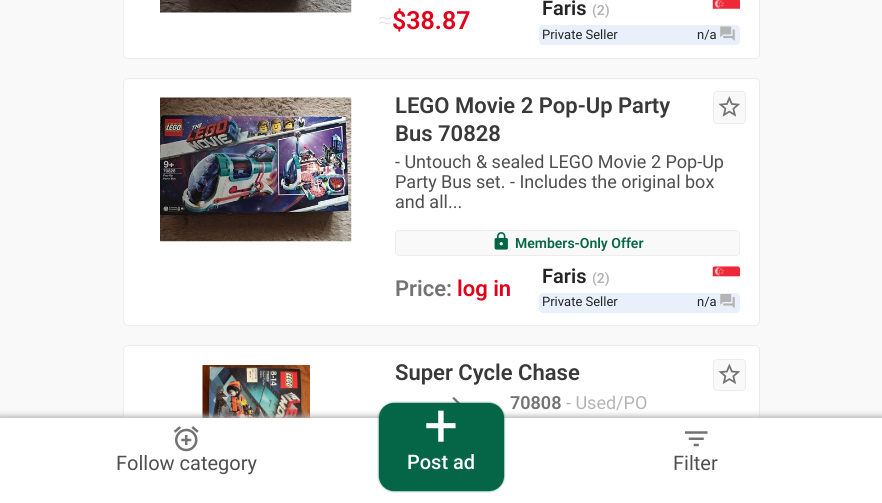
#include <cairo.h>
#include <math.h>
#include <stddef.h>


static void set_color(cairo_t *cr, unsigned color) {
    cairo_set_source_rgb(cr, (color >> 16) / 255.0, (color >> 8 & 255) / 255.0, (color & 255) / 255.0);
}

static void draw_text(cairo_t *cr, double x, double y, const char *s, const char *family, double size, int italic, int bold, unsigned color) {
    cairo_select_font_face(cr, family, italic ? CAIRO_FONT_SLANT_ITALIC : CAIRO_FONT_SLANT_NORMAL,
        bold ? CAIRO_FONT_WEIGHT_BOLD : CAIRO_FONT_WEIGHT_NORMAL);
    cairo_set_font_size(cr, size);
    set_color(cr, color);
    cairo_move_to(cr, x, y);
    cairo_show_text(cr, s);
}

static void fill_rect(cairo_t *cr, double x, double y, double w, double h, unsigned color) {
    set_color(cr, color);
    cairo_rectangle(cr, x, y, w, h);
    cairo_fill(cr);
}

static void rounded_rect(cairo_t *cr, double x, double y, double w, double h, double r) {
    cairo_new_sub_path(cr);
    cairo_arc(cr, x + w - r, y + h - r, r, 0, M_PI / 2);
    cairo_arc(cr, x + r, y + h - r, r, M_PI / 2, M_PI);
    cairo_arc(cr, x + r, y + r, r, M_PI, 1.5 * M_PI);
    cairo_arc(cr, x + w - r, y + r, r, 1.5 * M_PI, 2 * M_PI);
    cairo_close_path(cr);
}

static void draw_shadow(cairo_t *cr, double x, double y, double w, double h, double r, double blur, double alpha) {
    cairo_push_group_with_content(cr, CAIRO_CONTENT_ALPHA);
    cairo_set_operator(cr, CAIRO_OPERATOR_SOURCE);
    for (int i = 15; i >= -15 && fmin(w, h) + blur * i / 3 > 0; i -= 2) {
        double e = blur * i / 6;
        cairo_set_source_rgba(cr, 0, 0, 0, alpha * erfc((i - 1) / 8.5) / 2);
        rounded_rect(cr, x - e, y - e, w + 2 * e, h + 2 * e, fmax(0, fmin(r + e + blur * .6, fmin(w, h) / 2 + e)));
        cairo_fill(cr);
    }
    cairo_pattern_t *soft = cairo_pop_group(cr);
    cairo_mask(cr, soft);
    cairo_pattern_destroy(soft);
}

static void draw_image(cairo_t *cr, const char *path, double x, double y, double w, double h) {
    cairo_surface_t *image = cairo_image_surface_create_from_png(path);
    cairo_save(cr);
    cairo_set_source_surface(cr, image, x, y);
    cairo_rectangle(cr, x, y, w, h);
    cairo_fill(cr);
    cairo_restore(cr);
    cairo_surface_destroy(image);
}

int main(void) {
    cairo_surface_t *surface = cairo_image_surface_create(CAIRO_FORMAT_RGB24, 882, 503);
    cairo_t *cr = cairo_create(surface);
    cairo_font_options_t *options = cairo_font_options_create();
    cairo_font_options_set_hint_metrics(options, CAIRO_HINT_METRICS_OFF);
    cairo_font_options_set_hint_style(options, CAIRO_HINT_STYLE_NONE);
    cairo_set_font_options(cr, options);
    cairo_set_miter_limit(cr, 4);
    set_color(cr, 0xF9F9F9);
    cairo_paint(cr);
    set_color(cr, 0xFFFFFF);
    rounded_rect(cr, 123.5, -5.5, 636, 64, 4.5);
    cairo_fill_preserve(cr);
    set_color(cr, 0xECECEC);
    cairo_set_line_width(cr, 1);
    cairo_stroke(cr);
    draw_image(cr, "assets/img1.png", 160, 0, 192, 13);
    draw_text(cr, 378, 29, "≈", "Roboto Thin", 25, 0, 0, 0xD3D3D3);
    draw_text(cr, 392, 29, "$38.87", "Roboto SemiBold", 25, 0, 0, 0xE2001A);
    draw_text(cr, 542, 15, "Faris", "Roboto SemiBold", 20, 0, 0, 0x242424);
    draw_text(cr, 592, 15, "(2)", "Roboto SemiBold", 14, 0, 0, 0xB4B4B4);
    draw_image(cr, "assets/img2.png", 712, 0, 28, 9);
    set_color(cr, 0xE9F0FB);
    rounded_rect(cr, 539, 25, 201, 20, 4);
    cairo_fill(cr);
    draw_text(cr, 542, 39, "Private Seller", "Roboto", 13, 0, 0, 0x242424);
    draw_text(cr, 697, 39, "n/a", "Roboto", 13, 0, 0, 0x242424);
    draw_image(cr, "assets/img3.png", 720, 26, 15, 15);
    set_color(cr, 0xFFFFFF);
    rounded_rect(cr, 123.5, 78.5, 636, 247, 4.5);
    cairo_fill_preserve(cr);
    set_color(cr, 0xECECEC);
    cairo_stroke(cr);
    draw_image(cr, "assets/img4.png", 160, 97, 192, 145);
    draw_text(cr, 395, 113, "LEGO Movie 2 Pop-Up Party", "Roboto SemiBold", 22, 0, 0, 0x393939);
    draw_text(cr, 395, 141, "Bus 70828", "Roboto SemiBold", 22, 0, 0, 0x393939);
    draw_text(cr, 395, 168, "- Untouch & sealed LEGO Movie 2 Pop-Up", "Roboto", 18, 0, 0, 0x4F4F4F);
    draw_text(cr, 395, 188, "Party Bus set. - Includes the original box", "Roboto", 18, 0, 0, 0x4F4F4F);
    draw_text(cr, 395, 208, "and all...", "Roboto", 18, 0, 0, 0x4F4F4F);
    set_color(cr, 0xF9F9F9);
    rounded_rect(cr, 713.5, 91.5, 32, 32, 3.5);
    cairo_fill_preserve(cr);
    set_color(cr, 0xECECEC);
    cairo_stroke(cr);
    draw_image(cr, "assets/img5.png", 718, 96, 23, 21);
    set_color(cr, 0xF9F9F9);
    rounded_rect(cr, 395.5, 230.5, 344, 25, 3.5);
    cairo_fill_preserve(cr);
    set_color(cr, 0xECECEC);
    cairo_stroke(cr);
    draw_image(cr, "assets/img6.png", 494, 232, 14, 18);
    draw_text(cr, 515, 248, "Members-Only Offer", "Roboto SemiBold", 14, 0, 0, 0x046646);
    draw_text(cr, 395, 296, "Price:", "Roboto SemiBold", 22, 0, 0, 0x737373);
    draw_text(cr, 457, 296, "log in", "Roboto SemiBold", 22, 0, 0, 0xE2001A);
    draw_text(cr, 542, 283, "Faris", "Roboto SemiBold", 20, 0, 0, 0x242424);
    draw_text(cr, 592, 283, "(2)", "Roboto SemiBold", 14, 0, 0, 0xB4B4B4);
    draw_image(cr, "assets/img7.png", 712, 266, 28, 11);
    set_color(cr, 0xE9F0FB);
    rounded_rect(cr, 539, 293, 201, 20, 4);
    cairo_fill(cr);
    draw_text(cr, 542, 306, "Private Seller", "Roboto", 13, 0, 0, 0x242424);
    draw_text(cr, 697, 306, "n/a", "Roboto", 13, 0, 0, 0x242424);
    draw_image(cr, "assets/img8.png", 720, 294, 15, 15);
    set_color(cr, 0xFFFFFF);
    rounded_rect(cr, 123.5, 345.5, 636, 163, 4.5);
    cairo_fill_preserve(cr);
    set_color(cr, 0xECECEC);
    cairo_stroke(cr);
    draw_image(cr, "assets/img9.png", 202, 365, 108, 53);
    draw_text(cr, 395, 380, "Super Cycle Chase", "Roboto SemiBold", 22, 0, 0, 0x393939);
    draw_image(cr, "assets/img10.png", 452, 397, 8, 6);
    draw_text(cr, 510, 409, "70808", "Roboto SemiBold", 18, 0, 0, 0x737373);
    draw_text(cr, 566, 409, "- Used/PO", "Roboto", 18, 0, 0, 0xB4B4B4);
    set_color(cr, 0xF9F9F9);
    rounded_rect(cr, 713.5, 359.5, 32, 31, 3.5);
    cairo_fill_preserve(cr);
    set_color(cr, 0xECECEC);
    cairo_stroke(cr);
    draw_image(cr, "assets/img11.png", 718, 363, 23, 22);
    set_color(cr, 0xB4B4B4);
    draw_shadow(cr, -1, 416, 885, 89, 0, 3, 1);
    fill_rect(cr, 0, 418, 882, 85, 0xFFFFFF);
    draw_image(cr, "assets/img12.png", 173, 426, 26, 26);
    draw_text(cr, 116, 470, "Follow category", "Roboto", 20, 0, 0, 0x4F4F4F);
    set_color(cr, 0x046646);
    draw_shadow(cr, 379, 403, 125, 88, 15, 1, 1);
    set_color(cr, 0x046646);
    rounded_rect(cr, 379, 403, 125, 88, 15);
    cairo_fill(cr);
    draw_text(cr, 424, 446, "+", "Roboto", 60, 0, 0, 0xFFFFFF);
    draw_text(cr, 407, 469, "Post ad", "Roboto Medium", 20, 0, 0, 0xFFFFFF);
    draw_image(cr, "assets/img13.png", 685, 431, 23, 16);
    draw_text(cr, 673, 470, "Filter", "Roboto", 20, 0, 0, 0x4F4F4F);
    cairo_surface_write_to_png(surface, "output.png");
    cairo_font_options_destroy(options);
    cairo_destroy(cr);
    cairo_surface_destroy(surface);
    return 0;
}
